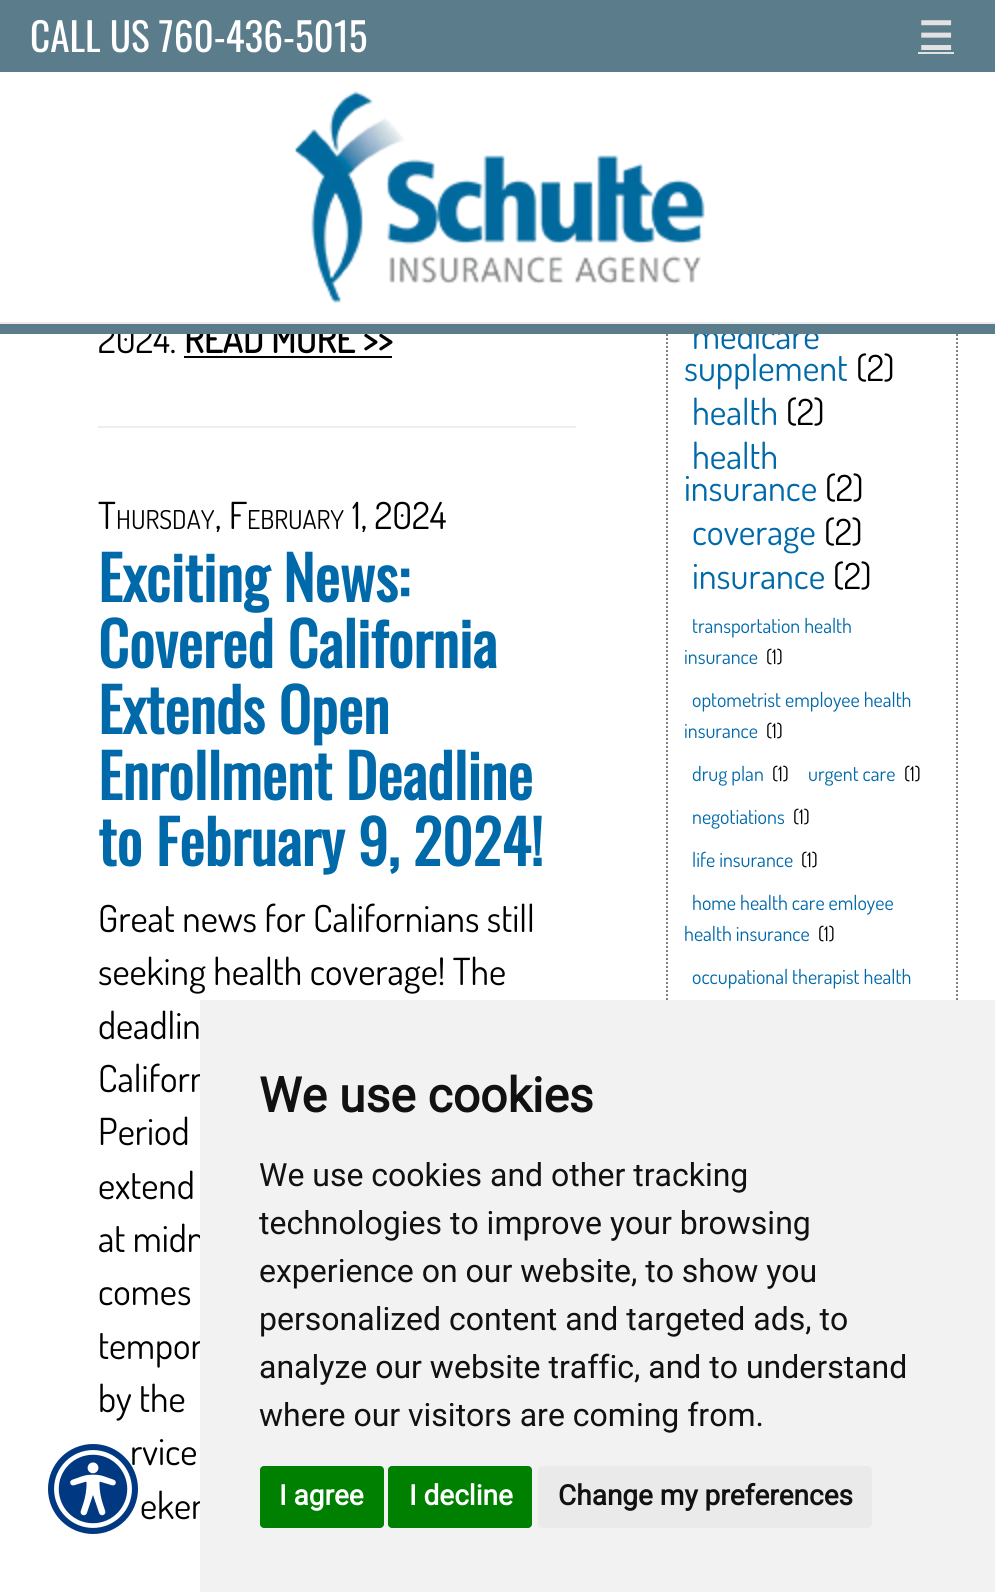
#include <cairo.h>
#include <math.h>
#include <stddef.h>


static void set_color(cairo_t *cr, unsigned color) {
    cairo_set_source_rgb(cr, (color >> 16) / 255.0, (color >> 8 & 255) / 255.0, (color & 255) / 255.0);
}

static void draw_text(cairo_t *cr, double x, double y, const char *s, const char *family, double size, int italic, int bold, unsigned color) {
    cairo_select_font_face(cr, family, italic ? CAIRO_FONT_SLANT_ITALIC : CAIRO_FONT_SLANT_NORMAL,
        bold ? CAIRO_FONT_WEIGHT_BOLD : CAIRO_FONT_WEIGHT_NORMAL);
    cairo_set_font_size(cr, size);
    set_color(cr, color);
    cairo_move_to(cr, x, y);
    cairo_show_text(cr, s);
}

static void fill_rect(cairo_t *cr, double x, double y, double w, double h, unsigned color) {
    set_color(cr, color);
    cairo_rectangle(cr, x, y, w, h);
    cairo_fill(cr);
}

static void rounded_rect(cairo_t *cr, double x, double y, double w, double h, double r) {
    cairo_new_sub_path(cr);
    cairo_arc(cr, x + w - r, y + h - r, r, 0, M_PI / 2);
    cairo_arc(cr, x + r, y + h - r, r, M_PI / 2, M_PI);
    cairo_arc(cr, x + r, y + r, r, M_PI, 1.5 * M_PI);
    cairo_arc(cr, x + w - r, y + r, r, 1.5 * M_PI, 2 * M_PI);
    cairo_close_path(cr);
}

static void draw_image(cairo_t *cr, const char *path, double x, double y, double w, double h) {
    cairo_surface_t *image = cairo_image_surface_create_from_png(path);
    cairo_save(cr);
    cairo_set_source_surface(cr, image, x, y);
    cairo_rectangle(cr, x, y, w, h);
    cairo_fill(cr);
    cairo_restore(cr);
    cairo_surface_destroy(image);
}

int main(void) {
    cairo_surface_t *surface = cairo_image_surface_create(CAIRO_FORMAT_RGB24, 995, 1592);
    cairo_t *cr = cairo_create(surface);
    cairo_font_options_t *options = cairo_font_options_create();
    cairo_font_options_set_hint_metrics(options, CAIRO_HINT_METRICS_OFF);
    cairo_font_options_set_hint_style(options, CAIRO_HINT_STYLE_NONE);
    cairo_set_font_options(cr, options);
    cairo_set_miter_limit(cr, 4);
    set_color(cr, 0xFFFFFF);
    cairo_paint(cr);
    cairo_new_path(cr);
    cairo_move_to(cr, 957, -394);
    cairo_line_to(cr, 957, 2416);
    set_color(cr, 0x7F7F7F);
    cairo_set_dash(cr, (double[]){2, 2}, 2, 0);
    cairo_stroke(cr);
    cairo_new_path(cr);
    cairo_move_to(cr, 667, -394);
    cairo_line_to(cr, 667, 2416);
    cairo_stroke(cr);
    draw_text(cr, 692, 349, "medicare", "Dosis", 36, 0, 0, 0x0069AA);
    fill_rect(cr, 666, 74, 292, 248, 0xFFFFFF);
    draw_text(cr, 98, 353, "2024.", "Dosis", 37.25, 0, 0, 0x000000);
    draw_text(cr, 184, 353, "READ MORE >>", "Dosis", 37.25, 0, 1, 0x000000);
    fill_rect(cr, 0, 324, 995, 10, 0x5B7C8B);
    fill_rect(cr, 0, 0, 995, 72, 0x5B7C8B);
    draw_text(cr, 30, 52, "CALL US 760-436-5015", "Oswald", 39.25, 0, 0, 0xFFFFFF);
    draw_text(cr, 918, 50, "☰", "DejaVu Sans", 39.25, 0, 1, 0xE2E2E2);
    fill_rect(cr, 918, 52, 36, 2, 0xE2E2E2);
    draw_image(cr, "assets/img1.png", 295, 91, 410, 212);
    fill_rect(cr, 0, 322, 995, 2, 0xECECEC);
    fill_rect(cr, 184, 356, 208, 2, 0x000000);
    fill_rect(cr, 98, 426, 478, 2, 0xEEEEEE);
    draw_text(cr, 98, 529, "T", "Dosis", 37.25, 0, 0, 0x000000);
    draw_text(cr, 116, 529, "HURSDAY", "Dosis", 26, 0, 0, 0x000000);
    draw_text(cr, 215, 529, ", F", "Dosis", 37.25, 0, 0, 0x000000);
    draw_text(cr, 247, 529, "EBRUARY", "Dosis", 26, 0, 0, 0x000000);
    draw_text(cr, 352, 529, "1, 2024", "Dosis", 37.25, 0, 0, 0x000000);
    draw_text(cr, 98, 602, "Exciting News:", "Oswald", 60, 0, 1, 0x0069AA);
    draw_text(cr, 98, 668, "Covered California", "Oswald", 60, 0, 1, 0x0069AA);
    draw_text(cr, 98, 734, "Extends Open", "Oswald", 60, 0, 1, 0x0069AA);
    draw_text(cr, 98, 800, "Enrollment Deadline", "Oswald", 60, 0, 1, 0x0069AA);
    draw_text(cr, 98, 866, "to February 9, 2024!", "Oswald", 60, 0, 1, 0x0069AA);
    draw_text(cr, 98, 932, "Great news for Californians still", "Dosis", 37.25, 0, 0, 0x000000);
    draw_text(cr, 98, 985, "seeking health coverage! The", "Dosis", 37.25, 0, 0, 0x000000);
    draw_text(cr, 98, 1039, "deadlin", "Dosis", 37.25, 0, 0, 0x000000);
    draw_text(cr, 98, 1092, "Californ", "Dosis", 37.25, 0, 0, 0x000000);
    draw_text(cr, 98, 1145, "Period", "Dosis", 37.25, 0, 0, 0x000000);
    draw_text(cr, 98, 1199, "extend", "Dosis", 37.25, 0, 0, 0x000000);
    draw_text(cr, 98, 1252, "at midn", "Dosis", 37.25, 0, 0, 0x000000);
    draw_text(cr, 98, 1305, "comes", "Dosis", 37.25, 0, 0, 0x000000);
    draw_text(cr, 98, 1359, "tempor", "Dosis", 37.25, 0, 0, 0x000000);
    draw_text(cr, 98, 1412, "by the", "Dosis", 37.25, 0, 0, 0x000000);
    draw_text(cr, 130, 1465, "rvice", "Dosis", 37.25, 0, 0, 0x000000);
    draw_text(cr, 140, 1519, "eken", "Dosis", 37.25, 0, 0, 0x000000);
    draw_text(cr, 684, 381, "supplement", "Dosis", 36, 0, 0, 0x0069AA);
    draw_text(cr, 856, 381, "(2)", "Dosis", 36, 0, 0, 0x000000);
    draw_text(cr, 692, 425, "health", "Dosis", 36, 0, 0, 0x0069AA);
    draw_text(cr, 786, 425, "(2)", "Dosis", 36, 0, 0, 0x000000);
    draw_text(cr, 692, 469, "health", "Dosis", 36, 0, 0, 0x0069AA);
    draw_text(cr, 684, 501, "insurance", "Dosis", 36, 0, 0, 0x0069AA);
    draw_text(cr, 825, 501, "(2)", "Dosis", 36, 0, 0, 0x000000);
    draw_text(cr, 692, 545, "coverage", "Dosis", 36, 0, 0, 0x0069AA);
    draw_text(cr, 824, 545, "(2)", "Dosis", 36, 0, 0, 0x000000);
    draw_text(cr, 692, 589, "insurance", "Dosis", 36, 0, 0, 0x0069AA);
    draw_text(cr, 833, 589, "(2)", "Dosis", 36, 0, 0, 0x000000);
    draw_text(cr, 692, 633, "transportation health", "Dosis", 20, 0, 0, 0x0069AA);
    draw_text(cr, 684, 664, "insurance", "Dosis", 20, 0, 0, 0x0069AA);
    draw_text(cr, 766, 664, "(1)", "Dosis", 20, 0, 0, 0x000000);
    draw_text(cr, 692, 707, "optometrist employee health", "Dosis", 20, 0, 0, 0x0069AA);
    draw_text(cr, 684, 738, "insurance", "Dosis", 20, 0, 0, 0x0069AA);
    draw_text(cr, 766, 738, "(1)", "Dosis", 20, 0, 0, 0x000000);
    draw_text(cr, 692, 781, "drug plan", "Dosis", 20, 0, 0, 0x0069AA);
    draw_text(cr, 772, 781, "(1)", "Dosis", 20, 0, 0, 0x000000);
    draw_text(cr, 808, 781, "urgent care", "Dosis", 20, 0, 0, 0x0069AA);
    draw_text(cr, 904, 781, "(1)", "Dosis", 20, 0, 0, 0x000000);
    draw_text(cr, 692, 824, "negotiations", "Dosis", 20, 0, 0, 0x0069AA);
    draw_text(cr, 793, 824, "(1)", "Dosis", 20, 0, 0, 0x000000);
    draw_text(cr, 692, 867, "life insurance", "Dosis", 20, 0, 0, 0x0069AA);
    draw_text(cr, 801, 867, "(1)", "Dosis", 20, 0, 0, 0x000000);
    draw_text(cr, 692, 910, "home health care emloyee", "Dosis", 20, 0, 0, 0x0069AA);
    draw_text(cr, 684, 941, "health insurance", "Dosis", 20, 0, 0, 0x0069AA);
    draw_text(cr, 818, 941, "(1)", "Dosis", 20, 0, 0, 0x000000);
    draw_text(cr, 692, 984, "occupational therapist health", "Dosis", 20, 0, 0, 0x0069AA);
    draw_image(cr, "assets/img2.png", 48, 1444, 90, 90);
    fill_rect(cr, 200, 1000, 795, 592, 0xF2F2F2);
    draw_text(cr, 259, 1112, "We use cookies", "Roboto", 48, 0, 1, 0x111111);
    draw_text(cr, 259, 1186, "We use cookies and other tracking", "Roboto", 32, 0, 0, 0x111111);
    draw_text(cr, 259, 1234, "technologies to improve your browsing", "Roboto", 32, 0, 0, 0x111111);
    draw_text(cr, 259, 1282, "experience on our website, to show you", "Roboto", 32, 0, 0, 0x111111);
    draw_text(cr, 259, 1330, "personalized content and targeted ads, to", "Roboto", 32, 0, 0, 0x111111);
    draw_text(cr, 259, 1378, "analyze our website traffic, and to understand", "Roboto", 32, 0, 0, 0x111111);
    draw_text(cr, 259, 1426, "where our visitors are coming from.", "Roboto", 32, 0, 0, 0x111111);
    set_color(cr, 0x008000);
    rounded_rect(cr, 260, 1466, 124, 62, 4);
    cairo_fill(cr);
    draw_text(cr, 279, 1505, "I agree", "Roboto", 28, 0, 1, 0xFFFFFF);
    set_color(cr, 0x008000);
    rounded_rect(cr, 388, 1466, 144, 62, 4);
    cairo_fill(cr);
    draw_text(cr, 409, 1505, "I decline", "Roboto", 28, 0, 1, 0xFFFFFF);
    set_color(cr, 0xEAEAEA);
    rounded_rect(cr, 538, 1466, 334, 62, 4);
    cairo_fill(cr);
    draw_text(cr, 558, 1505, "Change my preferences", "Roboto", 28, 0, 1, 0x111111);
    cairo_surface_write_to_png(surface, "output.png");
    cairo_font_options_destroy(options);
    cairo_destroy(cr);
    cairo_surface_destroy(surface);
    return 0;
}
